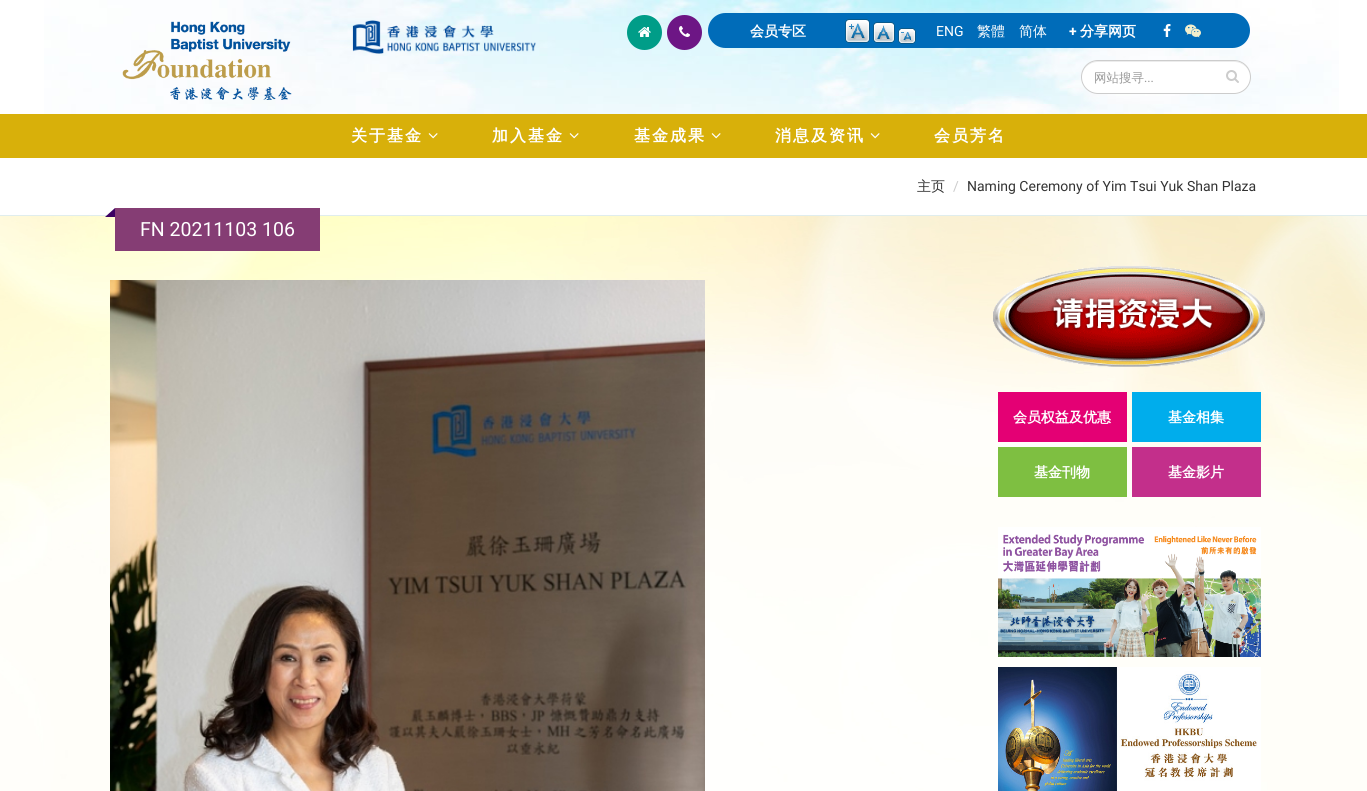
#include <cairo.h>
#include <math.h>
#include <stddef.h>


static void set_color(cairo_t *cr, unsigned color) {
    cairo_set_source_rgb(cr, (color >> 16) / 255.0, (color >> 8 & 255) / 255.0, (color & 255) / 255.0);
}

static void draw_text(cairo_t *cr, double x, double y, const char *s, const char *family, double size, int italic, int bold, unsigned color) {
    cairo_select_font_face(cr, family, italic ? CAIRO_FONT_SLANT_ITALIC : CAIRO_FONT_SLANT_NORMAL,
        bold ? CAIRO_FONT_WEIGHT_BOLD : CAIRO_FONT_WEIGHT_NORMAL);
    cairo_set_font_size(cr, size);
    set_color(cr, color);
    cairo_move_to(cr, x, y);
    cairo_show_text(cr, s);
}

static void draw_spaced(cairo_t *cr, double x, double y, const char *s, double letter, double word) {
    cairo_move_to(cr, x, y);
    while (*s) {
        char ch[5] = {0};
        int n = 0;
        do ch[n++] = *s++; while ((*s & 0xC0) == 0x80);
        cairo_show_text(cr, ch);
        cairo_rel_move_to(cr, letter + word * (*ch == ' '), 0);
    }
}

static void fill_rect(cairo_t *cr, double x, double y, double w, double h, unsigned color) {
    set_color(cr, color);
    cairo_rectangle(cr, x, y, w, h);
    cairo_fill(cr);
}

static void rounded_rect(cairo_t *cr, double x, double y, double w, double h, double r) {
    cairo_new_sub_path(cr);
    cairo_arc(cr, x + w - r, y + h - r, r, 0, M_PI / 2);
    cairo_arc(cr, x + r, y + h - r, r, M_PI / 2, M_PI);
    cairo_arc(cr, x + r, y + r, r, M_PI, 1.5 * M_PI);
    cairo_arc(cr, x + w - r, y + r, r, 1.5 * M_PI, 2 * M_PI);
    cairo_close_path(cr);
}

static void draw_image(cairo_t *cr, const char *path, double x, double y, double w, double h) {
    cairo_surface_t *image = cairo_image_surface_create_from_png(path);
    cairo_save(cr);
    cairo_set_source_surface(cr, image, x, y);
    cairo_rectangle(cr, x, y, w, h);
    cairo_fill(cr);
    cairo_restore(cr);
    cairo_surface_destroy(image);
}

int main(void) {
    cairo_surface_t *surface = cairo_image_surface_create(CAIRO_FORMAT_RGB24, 1367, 791);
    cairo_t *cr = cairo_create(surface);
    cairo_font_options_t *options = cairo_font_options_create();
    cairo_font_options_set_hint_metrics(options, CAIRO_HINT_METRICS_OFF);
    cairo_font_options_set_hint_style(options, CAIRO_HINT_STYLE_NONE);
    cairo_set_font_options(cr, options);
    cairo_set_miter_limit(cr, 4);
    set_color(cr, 0xFFFFFF);
    cairo_paint(cr);
    draw_image(cr, "assets/img1.png", 44, 0, 1295, 114);
    draw_image(cr, "assets/img2.png", 122, 21, 170, 79);
    draw_image(cr, "assets/img3.png", 352, 20, 184, 34);
    set_color(cr, 0x009D88);
    cairo_arc(cr, 644.5, 32.5, 17.5, 0, 2 * M_PI);
    cairo_fill(cr);
    draw_image(cr, "assets/img4.png", 638, 27, 13, 10);
    set_color(cr, 0x6D1685);
    cairo_arc(cr, 684.5, 32.5, 17.5, 0, 2 * M_PI);
    cairo_fill(cr);
    draw_image(cr, "assets/img5.png", 679, 26, 11, 11);
    set_color(cr, 0x006CB9);
    rounded_rect(cr, 708, 13, 542, 35, 17.5);
    cairo_fill(cr);
    draw_text(cr, 750, 36, "会员专区", "WenQuanYi Zen Hei", 14, 0, 1, 0xFFFFFF);
    draw_image(cr, "assets/img6.png", 845, 19, 25, 24);
    draw_image(cr, "assets/img7.png", 873, 22, 22, 21);
    draw_image(cr, "assets/img8.png", 898, 28, 18, 16);
    draw_text(cr, 936, 36, "ENG", "Roboto", 14, 0, 0, 0xFFFFFF);
    draw_text(cr, 977, 36, "繁體", "WenQuanYi Zen Hei Medium", 14, 0, 0, 0xFFFFFF);
    draw_text(cr, 1019, 36, "简体", "WenQuanYi Zen Hei Medium", 14, 0, 0, 0xFFFFFF);
    draw_text(cr, 1069, 36, "+", "Roboto", 14, 0, 1, 0xFFFFFF);
    draw_text(cr, 1080, 36, "分享网页", "WenQuanYi Zen Hei", 14, 0, 1, 0xFFFFFF);
    draw_image(cr, "assets/img9.png", 1163, 24, 8, 13);
    draw_image(cr, "assets/img10.png", 1185, 24, 16, 14);
    rounded_rect(cr, 1081, 60, 170, 34, 17);
    cairo_fill(cr);
    set_color(cr, 0xECECEC);
    cairo_new_path(cr);
    cairo_move_to(cr, 1098, 62);
    cairo_line_to(cr, 1234, 62);
    cairo_curve_to(cr, 1243, 62, 1250, 69, 1250, 77);
    cairo_curve_to(cr, 1250, 68, 1243, 61, 1234, 61);
    cairo_line_to(cr, 1098, 61);
    cairo_curve_to(cr, 1089, 61, 1082, 68, 1082, 77);
    cairo_curve_to(cr, 1082, 69, 1089, 62, 1098, 62);
    cairo_close_path(cr);
    cairo_fill(cr);
    rounded_rect(cr, 1081.5, 60.5, 169, 33, 16.5);
    set_color(cr, 0xCCCCCC);
    cairo_set_line_width(cr, 1);
    cairo_stroke(cr);
    draw_text(cr, 1094, 82, "网站搜寻", "WenQuanYi Zen Hei Medium", 12.5, 0, 0, 0x999999);
    draw_text(cr, 1144, 82, "...", "Roboto", 12.5, 0, 0, 0x999999);
    draw_image(cr, "assets/img11.png", 1226, 70, 13, 13);
    fill_rect(cr, 0, 114, 1367, 44, 0xD8B00A);
    cairo_select_font_face(cr, "WenQuanYi Zen Hei", CAIRO_FONT_SLANT_NORMAL, CAIRO_FONT_WEIGHT_BOLD);
    cairo_set_font_size(cr, 16);
    set_color(cr, 0xFFFFFF);
    draw_spaced(cr, 351, 141, "关于基金", 2, 0);
    draw_image(cr, "assets/img12.png", 428, 133, 10, 6);
    draw_spaced(cr, 492, 141, "加入基金", 2, 0);
    draw_image(cr, "assets/img12.png", 569, 133, 10, 6);
    draw_spaced(cr, 634, 141, "基金成果", 2, 0);
    draw_image(cr, "assets/img12.png", 711, 133, 10, 6);
    draw_spaced(cr, 775, 141, "消息及资讯", 2, 0);
    draw_image(cr, "assets/img12.png", 870, 133, 10, 6);
    draw_spaced(cr, 934, 141, "会员芳名", 2, 0);
    draw_image(cr, "assets/img13.png", 0, 216, 1367, 575);
    fill_rect(cr, 0, 215, 1367, 1, 0xE0EDED);
    draw_text(cr, 917, 191, "主页", "WenQuanYi Zen Hei Medium", 14, 0, 0, 0x333333);
    draw_text(cr, 953, 191, "/", "Roboto", 14, 0, 0, 0xCCCCCC);
    draw_text(cr, 967, 191, "Naming Ceremony of Yim Tsui Yuk Shan Plaza", "Roboto", 14, 0, 0, 0x333333);
    fill_rect(cr, 115, 208, 205, 43, 0x853D74);
    set_color(cr, 0x3C0062);
    cairo_new_path(cr);
    cairo_move_to(cr, 115, 208);
    cairo_line_to(cr, 115, 217);
    cairo_line_to(cr, 105, 217);
    cairo_close_path(cr);
    cairo_fill(cr);
    draw_text(cr, 140, 236, "FN 20211103 106", "Roboto", 19.5, 0, 0, 0xFFFFFF);
    draw_image(cr, "assets/img14.png", 110, 280, 595, 511);
    draw_image(cr, "assets/img15.png", 993, 266, 272, 101);
    fill_rect(cr, 998, 392, 129, 50, 0xE40074);
    draw_text(cr, 1013, 422, "会员权益及优惠", "WenQuanYi Zen Hei", 14, 0, 1, 0xFFFFFF);
    fill_rect(cr, 1132, 392, 129, 50, 0x00ADEC);
    draw_text(cr, 1168, 422, "基金相集", "WenQuanYi Zen Hei", 14, 0, 1, 0xFFFFFF);
    fill_rect(cr, 998, 447, 129, 50, 0x7EBF41);
    draw_text(cr, 1034, 477, "基金刊物", "WenQuanYi Zen Hei", 14, 0, 1, 0xFFFFFF);
    fill_rect(cr, 1132, 447, 129, 50, 0xC32F8B);
    draw_text(cr, 1168, 477, "基金影片", "WenQuanYi Zen Hei", 14, 0, 1, 0xFFFFFF);
    draw_image(cr, "assets/img16.png", 998, 527, 263, 130);
    draw_image(cr, "assets/img17.png", 998, 667, 263, 124);
    cairo_surface_write_to_png(surface, "output.png");
    cairo_font_options_destroy(options);
    cairo_destroy(cr);
    cairo_surface_destroy(surface);
    return 0;
}
